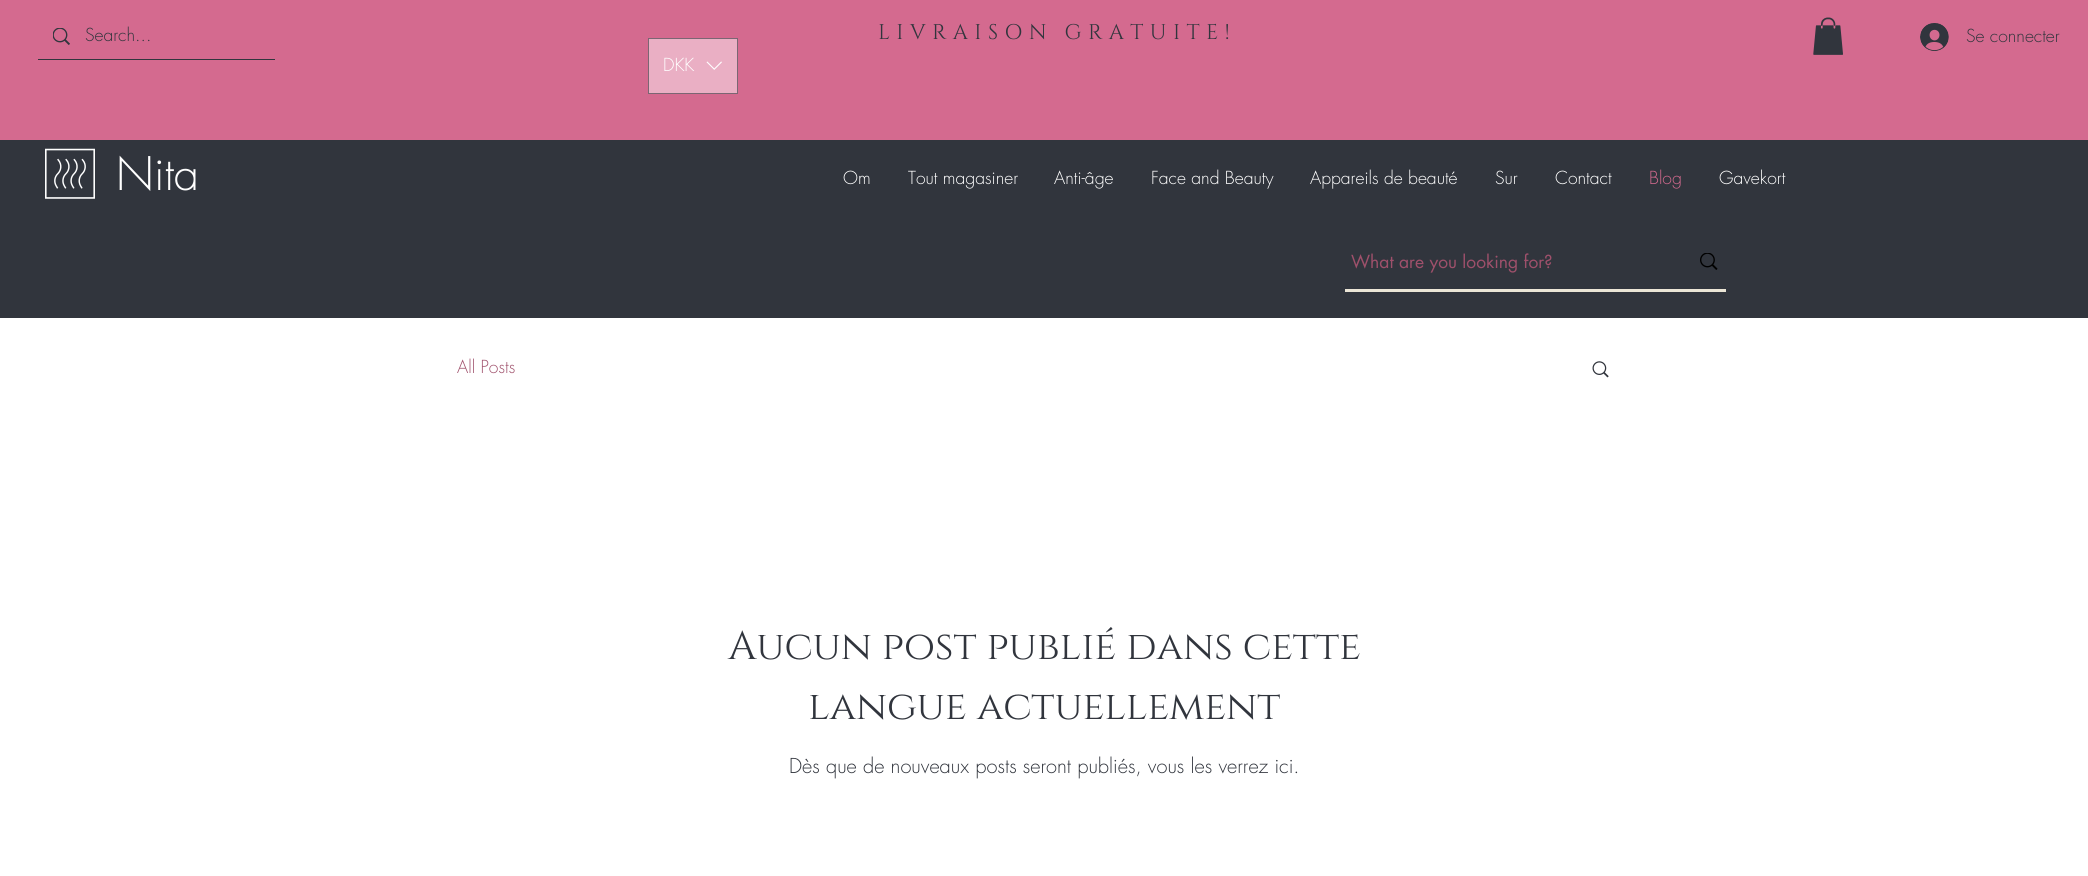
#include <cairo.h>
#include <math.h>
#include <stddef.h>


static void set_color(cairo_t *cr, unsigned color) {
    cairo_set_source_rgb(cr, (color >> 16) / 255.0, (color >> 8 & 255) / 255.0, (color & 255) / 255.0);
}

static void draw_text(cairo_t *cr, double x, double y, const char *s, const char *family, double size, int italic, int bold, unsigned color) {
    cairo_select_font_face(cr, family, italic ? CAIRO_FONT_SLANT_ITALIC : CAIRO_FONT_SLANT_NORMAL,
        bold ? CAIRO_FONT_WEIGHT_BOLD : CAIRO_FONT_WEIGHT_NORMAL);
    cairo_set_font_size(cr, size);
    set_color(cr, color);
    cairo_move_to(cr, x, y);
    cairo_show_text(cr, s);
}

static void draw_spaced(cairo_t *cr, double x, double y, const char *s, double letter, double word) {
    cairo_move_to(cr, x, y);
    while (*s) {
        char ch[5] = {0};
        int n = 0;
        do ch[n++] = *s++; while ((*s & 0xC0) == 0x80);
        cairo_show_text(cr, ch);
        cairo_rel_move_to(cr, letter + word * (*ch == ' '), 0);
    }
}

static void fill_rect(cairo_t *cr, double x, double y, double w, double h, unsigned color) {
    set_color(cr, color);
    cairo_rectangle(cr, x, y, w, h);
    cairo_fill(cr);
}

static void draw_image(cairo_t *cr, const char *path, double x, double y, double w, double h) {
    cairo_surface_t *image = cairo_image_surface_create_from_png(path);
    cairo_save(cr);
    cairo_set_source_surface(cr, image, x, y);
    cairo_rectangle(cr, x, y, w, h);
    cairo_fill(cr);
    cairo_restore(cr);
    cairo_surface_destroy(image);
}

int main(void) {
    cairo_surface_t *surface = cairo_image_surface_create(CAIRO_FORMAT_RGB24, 2088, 876);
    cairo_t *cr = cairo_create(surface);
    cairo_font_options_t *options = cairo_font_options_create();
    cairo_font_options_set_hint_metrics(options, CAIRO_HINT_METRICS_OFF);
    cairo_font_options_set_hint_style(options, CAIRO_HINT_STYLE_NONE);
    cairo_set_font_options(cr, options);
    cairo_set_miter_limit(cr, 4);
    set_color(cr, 0xFFFFFF);
    cairo_paint(cr);
    fill_rect(cr, 0, 0, 2088, 140, 0xD46A8F);
    fill_rect(cr, 38, 59, 237, 1, 0x31353D);
    draw_image(cr, "assets/img1.png", 53, 28, 17, 17);
    draw_text(cr, 85, 41, "Search...", "futura Light", 17.5, 0, 0, 0x31353D);
    cairo_select_font_face(cr, "Cinzel", CAIRO_FONT_SLANT_NORMAL, CAIRO_FONT_WEIGHT_NORMAL);
    cairo_set_font_size(cr, 21.25);
    draw_spaced(cr, 878, 39, "LIVRAISON GRATUITE!", 6.4, 0);
    draw_image(cr, "assets/img2.png", 1813, 17, 30, 38);
    draw_image(cr, "assets/img3.png", 1920, 23, 29, 28);
    draw_text(cr, 1966, 42, "Se connecter", "futura Light", 17.5, 0, 0, 0x31353D);
    set_color(cr, 0xEAAFC4);
    cairo_rectangle(cr, 648.5, 38.5, 89, 55);
    cairo_fill_preserve(cr);
    set_color(cr, 0x7B6673);
    cairo_set_line_width(cr, 1);
    cairo_stroke(cr);
    draw_text(cr, 663, 71, "DKK", "futura Light", 17.5, 0, 0, 0xFFFFFF);
    draw_image(cr, "assets/img4.png", 706, 61, 16, 9);
    fill_rect(cr, 0, 140, 2088, 178, 0x31353D);
    draw_image(cr, "assets/img5.png", 45, 148, 50, 51);
    draw_text(cr, 116, 190, "Nita", "futura Light", 45, 0, 0, 0xFFFFFF);
    draw_text(cr, 843, 184, "Om", "futura Light", 17.5, 0, 0, 0xFFFFFF);
    draw_text(cr, 908, 184, "Tout magasiner", "futura Light", 17.5, 0, 0, 0xFFFFFF);
    draw_text(cr, 1054, 184, "Anti-âge", "futura Light", 17.5, 0, 0, 0xFFFFFF);
    draw_text(cr, 1151, 184, "Face and Beauty", "futura Light", 17.5, 0, 0, 0xFFFFFF);
    draw_text(cr, 1310, 184, "Appareils de beauté", "futura Light", 17.5, 0, 0, 0xFFFFFF);
    draw_text(cr, 1495, 184, "Sur", "futura Light", 17.5, 0, 0, 0xFFFFFF);
    draw_text(cr, 1555, 184, "Contact", "futura Light", 17.5, 0, 0, 0xFFFFFF);
    draw_text(cr, 1649, 184, "Blog", "futura Light", 17.5, 0, 0, 0xD46A8F);
    draw_text(cr, 1719, 184, "Gavekort", "futura Light", 17.5, 0, 0, 0xFFFFFF);
    fill_rect(cr, 1345, 289, 381, 3, 0xEBE5D6);
    draw_text(cr, 1351, 268, "What are you looking for?", "futura", 17.5, 0, 0, 0x9F506B);
    draw_image(cr, "assets/img6.png", 1700, 253, 18, 17);
    draw_text(cr, 457, 373, "All Posts", "futura Light", 17.5, 0, 0, 0x9F506B);
    draw_image(cr, "assets/img7.png", 1592, 361, 17, 17);
    draw_text(cr, 728, 659, "Aucun post publié dans cette", "Cinzel", 40, 0, 0, 0x31353D);
    draw_text(cr, 808, 719, "langue actuellement", "Cinzel", 40, 0, 0, 0x31353D);
    draw_text(cr, 789, 773, "Dès que de nouveaux posts seront publiés, vous les verrez ici.", "futura Light", 20, 0, 0, 0x31353D);
    cairo_surface_write_to_png(surface, "output.png");
    cairo_font_options_destroy(options);
    cairo_destroy(cr);
    cairo_surface_destroy(surface);
    return 0;
}
